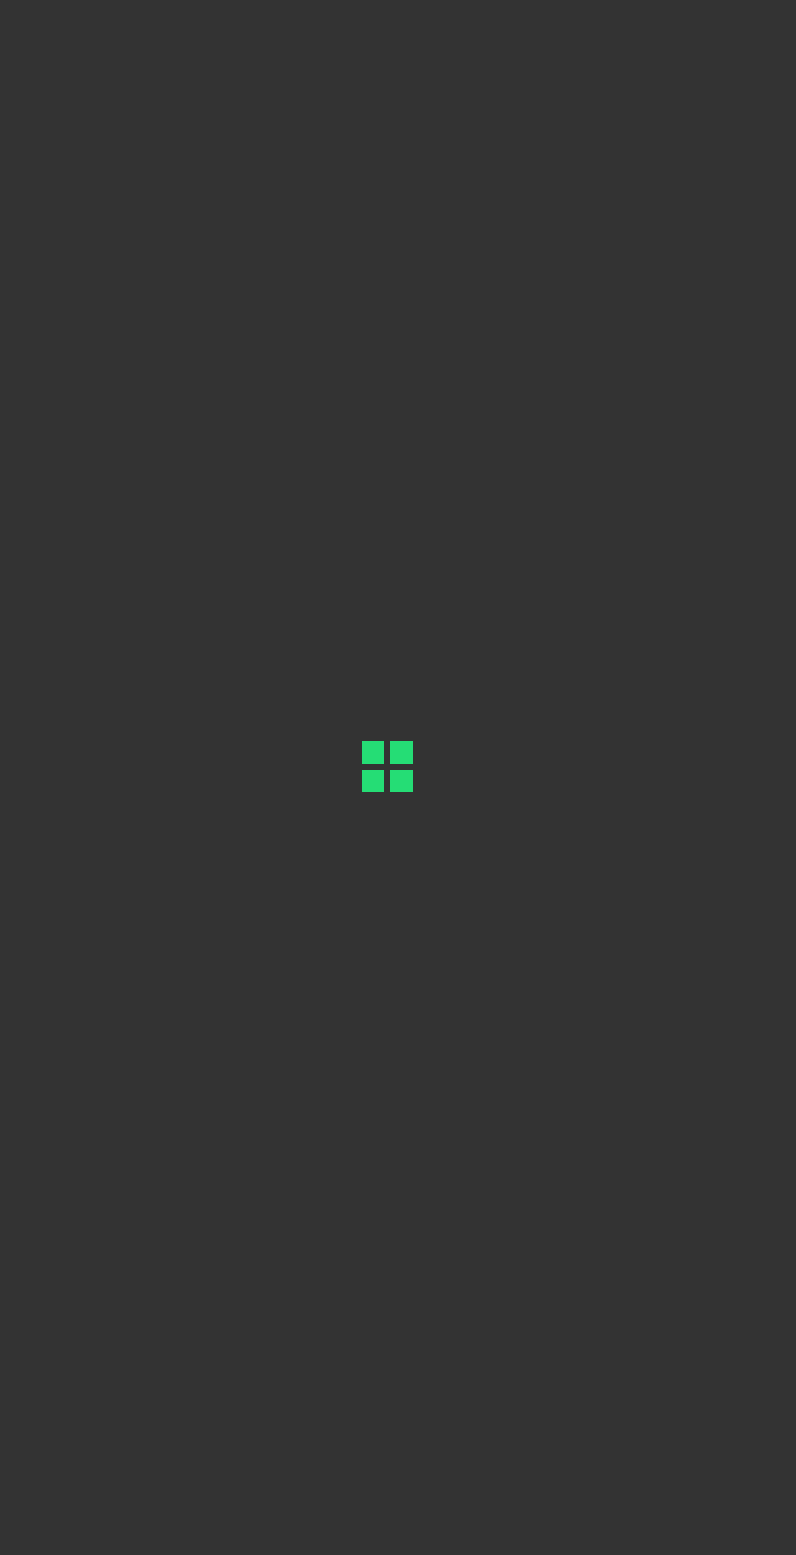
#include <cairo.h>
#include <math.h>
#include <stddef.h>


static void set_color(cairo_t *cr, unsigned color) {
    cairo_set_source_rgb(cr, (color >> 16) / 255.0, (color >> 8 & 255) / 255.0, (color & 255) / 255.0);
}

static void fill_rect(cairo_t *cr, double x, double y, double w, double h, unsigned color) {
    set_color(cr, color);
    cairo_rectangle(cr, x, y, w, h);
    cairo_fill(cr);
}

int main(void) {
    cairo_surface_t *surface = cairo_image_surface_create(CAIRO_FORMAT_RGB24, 796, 1555);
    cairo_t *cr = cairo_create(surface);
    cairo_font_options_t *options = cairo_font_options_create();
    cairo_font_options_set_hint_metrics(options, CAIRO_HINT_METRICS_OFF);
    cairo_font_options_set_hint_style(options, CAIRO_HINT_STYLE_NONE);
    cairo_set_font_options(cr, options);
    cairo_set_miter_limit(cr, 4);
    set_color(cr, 0x333333);
    cairo_paint(cr);
    fill_rect(cr, 362, 741, 22, 23, 0x25DD75);
    fill_rect(cr, 390, 741, 23, 23, 0x25DD75);
    fill_rect(cr, 362, 770, 22, 22, 0x25DD75);
    fill_rect(cr, 390, 770, 23, 22, 0x25DD75);
    cairo_surface_write_to_png(surface, "output.png");
    cairo_font_options_destroy(options);
    cairo_destroy(cr);
    cairo_surface_destroy(surface);
    return 0;
}
